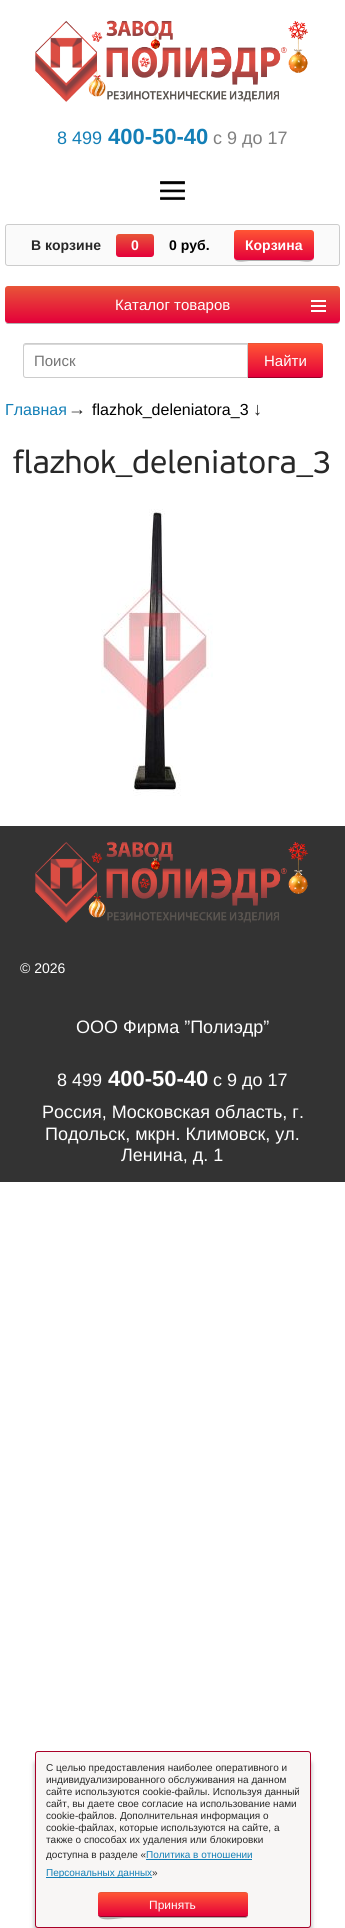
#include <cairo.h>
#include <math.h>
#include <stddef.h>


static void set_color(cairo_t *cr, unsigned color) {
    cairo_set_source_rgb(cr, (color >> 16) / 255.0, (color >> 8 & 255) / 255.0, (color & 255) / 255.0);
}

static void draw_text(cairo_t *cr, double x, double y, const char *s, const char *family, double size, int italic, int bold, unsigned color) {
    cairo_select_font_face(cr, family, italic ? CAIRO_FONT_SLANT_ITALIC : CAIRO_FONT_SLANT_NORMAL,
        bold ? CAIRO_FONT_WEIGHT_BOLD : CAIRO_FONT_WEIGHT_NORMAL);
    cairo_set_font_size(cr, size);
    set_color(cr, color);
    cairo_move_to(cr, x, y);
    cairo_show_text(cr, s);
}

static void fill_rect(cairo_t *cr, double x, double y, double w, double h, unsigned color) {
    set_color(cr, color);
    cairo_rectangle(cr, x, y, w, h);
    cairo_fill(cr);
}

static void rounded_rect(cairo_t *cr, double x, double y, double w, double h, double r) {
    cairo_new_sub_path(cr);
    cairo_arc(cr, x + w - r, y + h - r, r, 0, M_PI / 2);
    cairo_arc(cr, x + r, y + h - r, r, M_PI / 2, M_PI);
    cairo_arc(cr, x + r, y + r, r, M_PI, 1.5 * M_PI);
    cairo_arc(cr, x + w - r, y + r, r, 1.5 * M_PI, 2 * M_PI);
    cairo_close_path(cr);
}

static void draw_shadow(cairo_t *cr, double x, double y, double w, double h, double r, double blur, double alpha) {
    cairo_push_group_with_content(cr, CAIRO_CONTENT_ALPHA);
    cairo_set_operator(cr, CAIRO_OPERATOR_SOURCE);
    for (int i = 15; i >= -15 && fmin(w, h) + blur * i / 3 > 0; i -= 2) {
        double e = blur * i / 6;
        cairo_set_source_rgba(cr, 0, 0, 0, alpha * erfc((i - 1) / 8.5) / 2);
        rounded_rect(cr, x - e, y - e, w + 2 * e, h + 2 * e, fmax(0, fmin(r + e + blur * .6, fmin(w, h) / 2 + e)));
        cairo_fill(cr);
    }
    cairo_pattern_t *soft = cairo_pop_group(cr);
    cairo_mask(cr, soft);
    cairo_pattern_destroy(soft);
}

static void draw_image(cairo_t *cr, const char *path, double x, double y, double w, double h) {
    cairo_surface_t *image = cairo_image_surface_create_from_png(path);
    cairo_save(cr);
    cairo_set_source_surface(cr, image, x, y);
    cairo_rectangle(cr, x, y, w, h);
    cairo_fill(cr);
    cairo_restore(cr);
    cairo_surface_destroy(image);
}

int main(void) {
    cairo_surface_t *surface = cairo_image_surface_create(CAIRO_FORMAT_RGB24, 345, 1928);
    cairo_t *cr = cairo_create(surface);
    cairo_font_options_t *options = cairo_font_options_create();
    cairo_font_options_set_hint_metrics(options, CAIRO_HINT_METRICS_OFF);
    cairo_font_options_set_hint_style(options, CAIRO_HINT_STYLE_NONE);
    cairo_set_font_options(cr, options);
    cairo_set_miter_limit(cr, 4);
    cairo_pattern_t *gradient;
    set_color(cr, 0xFFFFFF);
    cairo_paint(cr);
    draw_image(cr, "assets/img1.png", 35, 20, 273, 82);
    draw_text(cr, 57, 144, "8 499", "Liberation Sans", 18, 0, 0, 0x137FB7);
    draw_text(cr, 108, 144, "400-50-40", "Liberation Sans", 22, 0, 1, 0x137FB7);
    draw_text(cr, 213, 144, "с 9 до 17", "Liberation Sans", 18, 0, 0, 0x808080);
    draw_image(cr, "assets/img2.png", 160, 181, 25, 19);
    set_color(cr, 0xFAFAFA);
    rounded_rect(cr, 5.5, 224.5, 334, 41, 2.5);
    cairo_fill_preserve(cr);
    set_color(cr, 0xCCCCCC);
    cairo_set_line_width(cr, 1);
    cairo_stroke(cr);
    set_color(cr, 0xFAFAFA);
    rounded_rect(cr, 6, 225, 333, 40, 3);
    cairo_fill(cr);
    draw_text(cr, 31, 250, "В корзине", "Liberation Sans", 14, 0, 1, 0x282828);
    gradient = cairo_pattern_create_linear(135, 234, 135, 257);
    cairo_pattern_add_color_stop_rgba(gradient, 0, 0.91, 0.333, 0.22, 1);
    cairo_pattern_add_color_stop_rgba(gradient, 1, 0.894, 0, 0.227, 1);
    cairo_set_source(cr, gradient);
    cairo_pattern_destroy(gradient);
    rounded_rect(cr, 116, 234, 38, 23, 3);
    cairo_fill(cr);
    draw_text(cr, 131, 250, "0", "Liberation Sans", 14, 0, 1, 0xFFFFFF);
    draw_text(cr, 169, 250, "0 руб.", "Liberation Sans", 14, 0, 1, 0x000000);
    set_color(cr, 0xAFAFAF);
    cairo_new_path(cr);
    cairo_move_to(cr, 234, 257);
    cairo_curve_to(cr, 234, 264, 245, 261, 249, 261);
    cairo_line_to(cr, 299, 261);
    cairo_curve_to(cr, 303, 261, 314, 264, 314, 257);
    cairo_curve_to(cr, 314, 259, 313, 260, 311, 260);
    cairo_line_to(cr, 237, 260);
    cairo_curve_to(cr, 235, 260, 234, 259, 234, 257);
    cairo_close_path(cr);
    cairo_fill(cr);
    gradient = cairo_pattern_create_linear(274, 230, 274, 260);
    cairo_pattern_add_color_stop_rgba(gradient, 0, 1, 0.333, 0.204, 1);
    cairo_pattern_add_color_stop_rgba(gradient, 1, 0.894, 0, 0.227, 1);
    cairo_set_source(cr, gradient);
    cairo_pattern_destroy(gradient);
    rounded_rect(cr, 234, 230, 80, 30, 3);
    cairo_fill(cr);
    draw_text(cr, 245, 250, "Корзина", "Liberation Sans", 14, 0, 1, 0xFFFFFF);
    set_color(cr, 0xB3B3B3);
    cairo_new_path(cr);
    cairo_move_to(cr, 5, 320);
    cairo_curve_to(cr, 5, 322, 6, 324, 8, 324);
    cairo_line_to(cr, 337, 324);
    cairo_curve_to(cr, 339, 324, 340, 322, 340, 320);
    cairo_curve_to(cr, 340, 322, 339, 323, 337, 323);
    cairo_line_to(cr, 8, 323);
    cairo_curve_to(cr, 6, 323, 5, 322, 5, 320);
    cairo_close_path(cr);
    cairo_fill(cr);
    gradient = cairo_pattern_create_linear(173, 286, 173, 323);
    cairo_pattern_add_color_stop_rgba(gradient, 0, 0.91, 0.333, 0.22, 1);
    cairo_pattern_add_color_stop_rgba(gradient, 1, 0.894, 0, 0.227, 1);
    cairo_set_source(cr, gradient);
    cairo_pattern_destroy(gradient);
    rounded_rect(cr, 5, 286, 335, 37, 3);
    cairo_fill(cr);
    draw_text(cr, 115, 310, "Каталог товаров", "Liberation Sans", 15, 0, 0, 0xFFFFFF);
    draw_image(cr, "assets/img3.png", 311, 300, 15, 12);
    set_color(cr, 0xD9D9D9);
    cairo_new_path(cr);
    cairo_move_to(cr, 26, 345);
    cairo_line_to(cr, 247, 345);
    cairo_line_to(cr, 247, 344);
    cairo_line_to(cr, 25, 344);
    cairo_curve_to(cr, 24, 345, 24, 346, 24, 347);
    cairo_curve_to(cr, 24, 346, 25, 345, 26, 345);
    cairo_close_path(cr);
    cairo_fill(cr);
    cairo_new_path(cr);
    cairo_move_to(cr, 26, 343.5);
    cairo_line_to(cr, 247.5, 343.5);
    cairo_line_to(cr, 247.5, 377.5);
    cairo_line_to(cr, 26, 377.5);
    cairo_curve_to(cr, 24.5, 377.5, 23.5, 376.5, 23.5, 375);
    cairo_line_to(cr, 23.5, 346);
    cairo_curve_to(cr, 23.5, 344.5, 24.5, 343.5, 26, 343.5);
    cairo_close_path(cr);
    set_color(cr, 0xCCCCCC);
    cairo_stroke(cr);
    draw_text(cr, 34, 366, "Поиск", "Liberation Sans", 15, 0, 0, 0x757575);
    cairo_save(cr);
    cairo_rectangle(cr, 23, 343, 300, 35);
    cairo_clip(cr);
    set_color(cr, 0xB3B3B3);
    cairo_new_path(cr);
    cairo_move_to(cr, 248, 378);
    cairo_line_to(cr, 248, 379);
    cairo_line_to(cr, 320, 379);
    cairo_curve_to(cr, 322, 379, 323, 378, 323, 376);
    cairo_line_to(cr, 323, 375);
    cairo_curve_to(cr, 323, 377, 322, 378, 320, 378);
    cairo_close_path(cr);
    cairo_fill(cr);
    cairo_restore(cr);
    cairo_save(cr);
    cairo_new_path(cr);
    cairo_move_to(cr, 248, 343);
    cairo_line_to(cr, 320, 343);
    cairo_curve_to(cr, 321.5, 343, 323, 344.5, 323, 346);
    cairo_line_to(cr, 323, 375);
    cairo_curve_to(cr, 323, 376.5, 321.5, 378, 320, 378);
    cairo_line_to(cr, 248, 378);
    cairo_close_path(cr);
    cairo_clip(cr);
    gradient = cairo_pattern_create_linear(286, 344, 286, 377);
    cairo_pattern_add_color_stop_rgba(gradient, 0, 1, 0.333, 0.204, 1);
    cairo_pattern_add_color_stop_rgba(gradient, 1, 0.894, 0, 0.227, 1);
    cairo_set_source(cr, gradient);
    cairo_pattern_destroy(gradient);
    cairo_rectangle(cr, 248, 344, 75, 33);
    cairo_fill(cr);
    cairo_restore(cr);
    set_color(cr, 0xE85538);
    cairo_new_path(cr);
    cairo_move_to(cr, 248, 343);
    cairo_line_to(cr, 248, 344);
    cairo_line_to(cr, 320, 344);
    cairo_curve_to(cr, 322, 344, 323, 345, 323, 346);
    cairo_curve_to(cr, 323, 344, 322, 343, 320, 343);
    cairo_close_path(cr);
    cairo_fill(cr);
    set_color(cr, 0x980027);
    cairo_new_path(cr);
    cairo_move_to(cr, 320, 378);
    cairo_curve_to(cr, 322, 378, 323, 377, 323, 375);
    cairo_curve_to(cr, 323, 376, 322, 377, 320, 377);
    cairo_line_to(cr, 248, 377);
    cairo_line_to(cr, 248, 378);
    cairo_close_path(cr);
    cairo_fill(cr);
    draw_text(cr, 264, 366, "Найти", "Liberation Sans", 15, 0, 0, 0xFFFFFF);
    draw_text(cr, 5, 415, "Главная", "Liberation Sans", 16, 0, 0, 0x137FB7);
    draw_text(cr, 68, 415, "→", "Liberation Sans", 18, 0, 0, 0x282828);
    draw_text(cr, 92, 415, "flazhok_deleniatora_3", "Liberation Sans", 16, 0, 0, 0x000000);
    draw_text(cr, 253, 415, "↓", "Liberation Sans", 18, 0, 0, 0x282828);
    draw_text(cr, 13, 473, "flazhok_deleniatora_3", "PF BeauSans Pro", 32, 0, 0, 0x282828);
    draw_image(cr, "assets/img4.png", 101, 509, 112, 287);
    fill_rect(cr, 0, 826, 345, 356, 0x333333);
    draw_image(cr, "assets/img5.png", 35, 841, 273, 82);
    draw_text(cr, 20, 973, "© 2026", "Liberation Sans", 14, 0, 0, 0xFFFFFF);
    draw_text(cr, 76, 1033, "ООО Фирма ”Полиэдр”", "Liberation Sans", 18, 0, 0, 0xFFFFFF);
    draw_text(cr, 57, 1086, "8 499", "Liberation Sans", 18, 0, 0, 0xFFFFFF);
    draw_text(cr, 108, 1086, "400-50-40", "Liberation Sans", 22, 0, 1, 0xFFFFFF);
    draw_text(cr, 213, 1086, "с 9 до 17", "Liberation Sans", 18, 0, 0, 0xFFFFFF);
    draw_text(cr, 42, 1118, "Россия, Московская область, г.", "Liberation Sans", 18, 0, 0, 0xFFFFFF);
    draw_text(cr, 45, 1140, "Подольск, мкрн. Климовск, ул.", "Liberation Sans", 18, 0, 0, 0xFFFFFF);
    draw_text(cr, 121, 1161, "Ленина, д. 1", "Liberation Sans", 18, 0, 0, 0xFFFFFF);
    set_color(cr, 0x323232);
    draw_shadow(cr, 35, 1761, 276, 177, 3, 2.5, 0.4);
    set_color(cr, 0xF8F6F5);
    rounded_rect(cr, 35.5, 1751.5, 275, 176, 2.5);
    cairo_fill_preserve(cr);
    set_color(cr, 0xA90027);
    cairo_stroke(cr);
    draw_text(cr, 46, 1771, "С целью предоставления наиболее оперативного и", "Liberation Sans", 10, 0, 0, 0x282828);
    draw_text(cr, 46, 1783, "индивидуализированного обслуживания на данном", "Liberation Sans", 10, 0, 0, 0x282828);
    draw_text(cr, 46, 1795, "сайте используются cookie-файлы. Используя данный", "Liberation Sans", 10, 0, 0, 0x282828);
    draw_text(cr, 46, 1807, "сайт, вы даете свое согласие на использование нами", "Liberation Sans", 10, 0, 0, 0x282828);
    draw_text(cr, 46, 1819, "cookie-файлов. Дополнительная информация о", "Liberation Sans", 10, 0, 0, 0x282828);
    draw_text(cr, 46, 1831, "cookie-файлах, которые используются на сайте, а", "Liberation Sans", 10, 0, 0, 0x282828);
    draw_text(cr, 46, 1843, "также о способах их удаления или блокировки", "Liberation Sans", 10, 0, 0, 0x282828);
    draw_text(cr, 46, 1858, "доступна в разделе «", "Liberation Sans", 10, 0, 0, 0x282828);
    draw_text(cr, 146, 1858, "Политика в отношении", "Liberation Sans", 10, 0, 0, 0x137FB7);
    fill_rect(cr, 146, 1859, 106, 1, 0x137FB7);
    fill_rect(cr, 46, 1877, 106, 1, 0x137FB7);
    draw_text(cr, 46, 1876, "Персональных данных", "Liberation Sans", 10, 0, 0, 0x137FB7);
    draw_text(cr, 152, 1876, "»", "Liberation Sans", 10, 0, 0, 0x282828);
    set_color(cr, 0xAEACAC);
    cairo_new_path(cr);
    cairo_move_to(cr, 98, 1914);
    cairo_curve_to(cr, 98, 1923, 117, 1918, 125, 1918);
    cairo_line_to(cr, 246, 1918);
    cairo_curve_to(cr, 248, 1917, 248, 1916, 248, 1914);
    cairo_curve_to(cr, 248, 1916, 247, 1917, 245, 1917);
    cairo_line_to(cr, 101, 1917);
    cairo_curve_to(cr, 99, 1917, 98, 1916, 98, 1914);
    cairo_close_path(cr);
    cairo_fill(cr);
    cairo_save(cr);
    rounded_rect(cr, 98, 1892, 150, 25, 3);
    cairo_clip(cr);
    gradient = cairo_pattern_create_linear(173, 1893, 173, 1916);
    cairo_pattern_add_color_stop_rgba(gradient, 0, 1, 0.333, 0.204, 1);
    cairo_pattern_add_color_stop_rgba(gradient, 1, 0.894, 0, 0.227, 1);
    cairo_set_source(cr, gradient);
    cairo_pattern_destroy(gradient);
    cairo_rectangle(cr, 98, 1893, 150, 23);
    cairo_fill(cr);
    cairo_restore(cr);
    set_color(cr, 0xE85538);
    cairo_new_path(cr);
    cairo_move_to(cr, 101, 1892);
    cairo_curve_to(cr, 99, 1892, 98, 1893, 98, 1895);
    cairo_curve_to(cr, 98, 1894, 99, 1893, 101, 1893);
    cairo_line_to(cr, 245, 1893);
    cairo_curve_to(cr, 247, 1893, 248, 1894, 248, 1895);
    cairo_curve_to(cr, 248, 1893, 247, 1892, 245, 1892);
    cairo_close_path(cr);
    cairo_fill(cr);
    set_color(cr, 0x980027);
    cairo_new_path(cr);
    cairo_move_to(cr, 245, 1917);
    cairo_curve_to(cr, 247, 1917, 248, 1916, 248, 1914);
    cairo_curve_to(cr, 248, 1915, 247, 1916, 245, 1916);
    cairo_line_to(cr, 101, 1916);
    cairo_curve_to(cr, 99, 1916, 98, 1915, 98, 1914);
    cairo_curve_to(cr, 98, 1916, 99, 1917, 101, 1917);
    cairo_close_path(cr);
    cairo_fill(cr);
    draw_text(cr, 149, 1909, "Принять", "Liberation Sans", 12, 0, 0, 0xFFFFFF);
    cairo_surface_write_to_png(surface, "output.png");
    cairo_font_options_destroy(options);
    cairo_destroy(cr);
    cairo_surface_destroy(surface);
    return 0;
}
